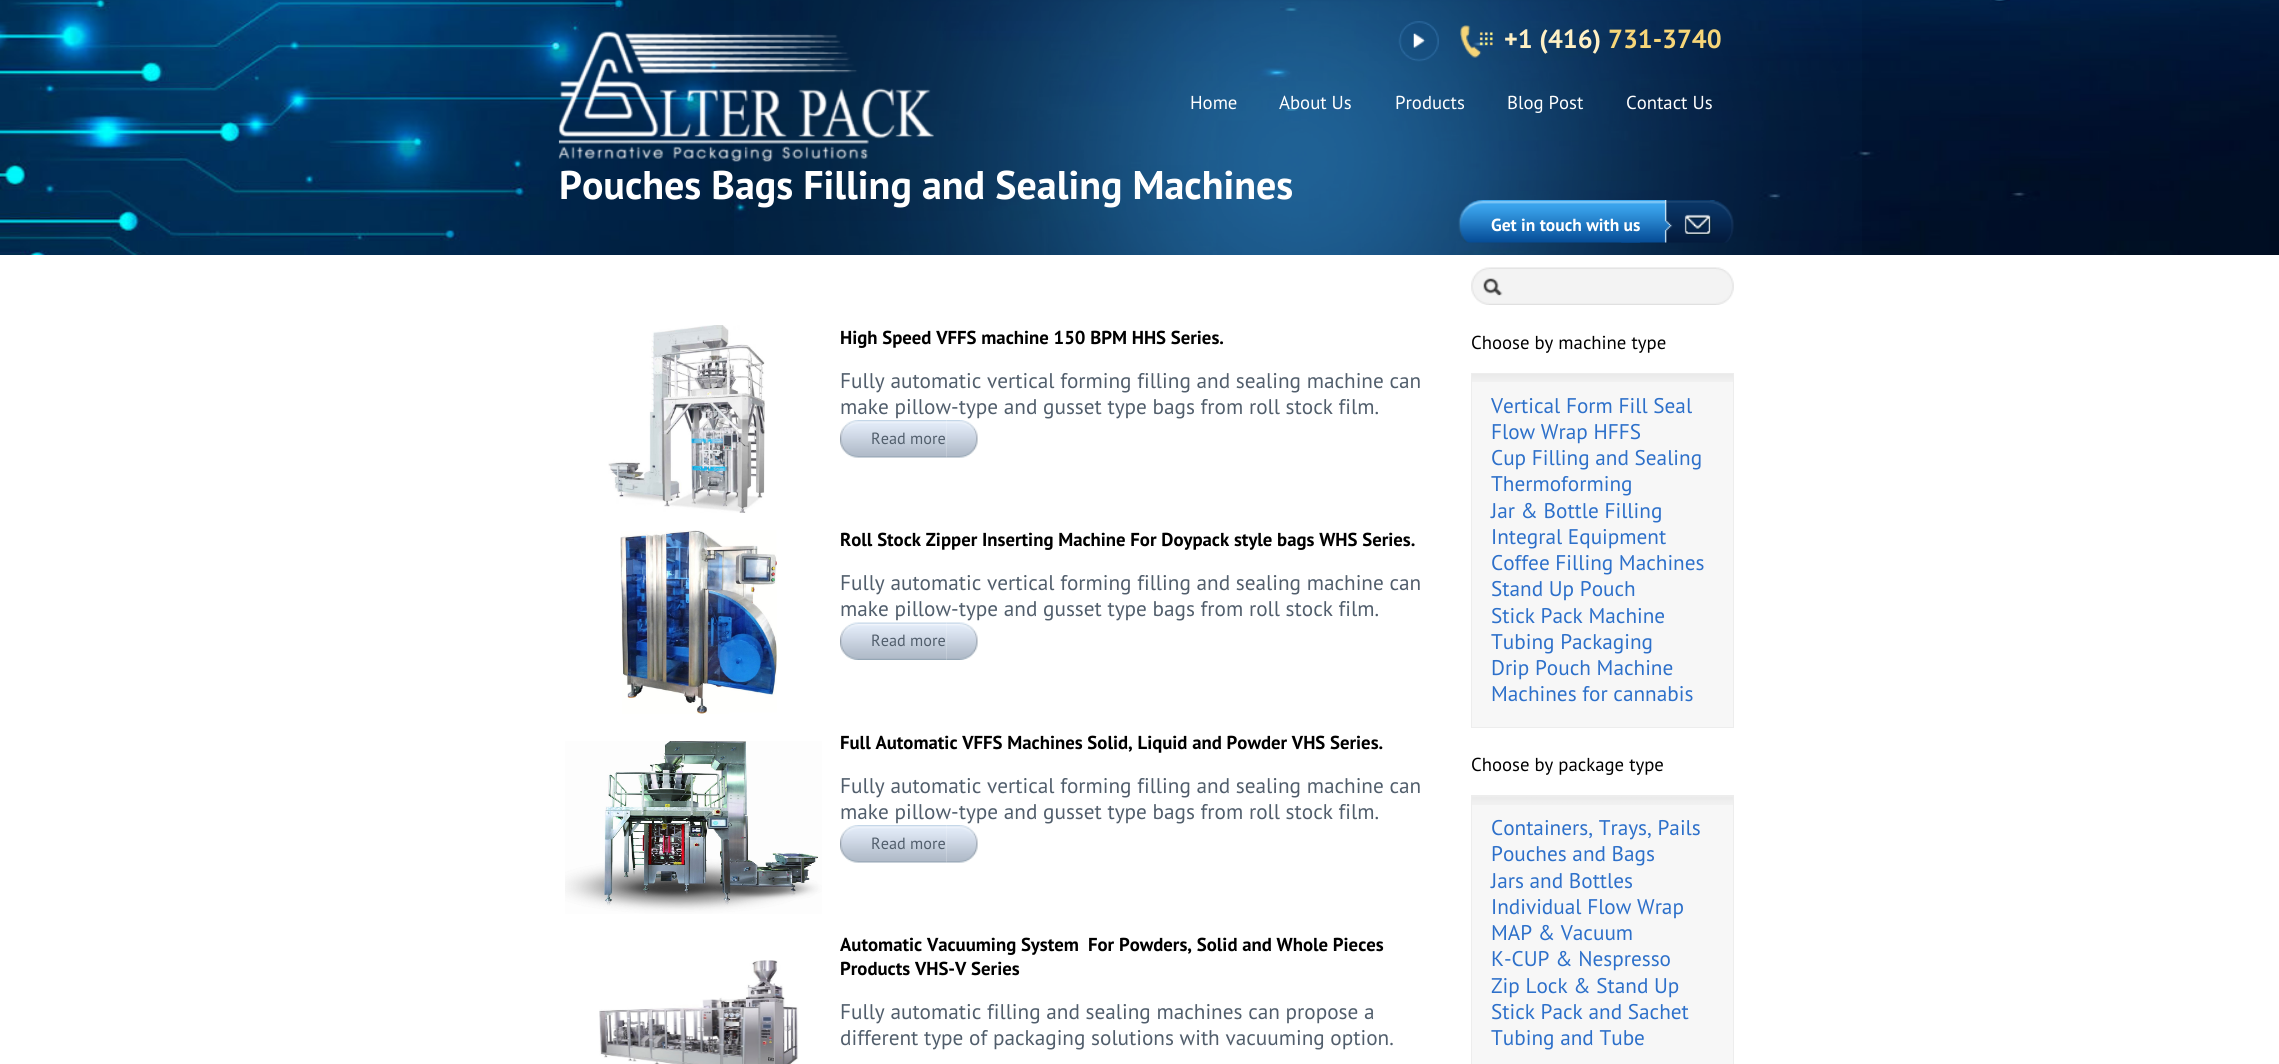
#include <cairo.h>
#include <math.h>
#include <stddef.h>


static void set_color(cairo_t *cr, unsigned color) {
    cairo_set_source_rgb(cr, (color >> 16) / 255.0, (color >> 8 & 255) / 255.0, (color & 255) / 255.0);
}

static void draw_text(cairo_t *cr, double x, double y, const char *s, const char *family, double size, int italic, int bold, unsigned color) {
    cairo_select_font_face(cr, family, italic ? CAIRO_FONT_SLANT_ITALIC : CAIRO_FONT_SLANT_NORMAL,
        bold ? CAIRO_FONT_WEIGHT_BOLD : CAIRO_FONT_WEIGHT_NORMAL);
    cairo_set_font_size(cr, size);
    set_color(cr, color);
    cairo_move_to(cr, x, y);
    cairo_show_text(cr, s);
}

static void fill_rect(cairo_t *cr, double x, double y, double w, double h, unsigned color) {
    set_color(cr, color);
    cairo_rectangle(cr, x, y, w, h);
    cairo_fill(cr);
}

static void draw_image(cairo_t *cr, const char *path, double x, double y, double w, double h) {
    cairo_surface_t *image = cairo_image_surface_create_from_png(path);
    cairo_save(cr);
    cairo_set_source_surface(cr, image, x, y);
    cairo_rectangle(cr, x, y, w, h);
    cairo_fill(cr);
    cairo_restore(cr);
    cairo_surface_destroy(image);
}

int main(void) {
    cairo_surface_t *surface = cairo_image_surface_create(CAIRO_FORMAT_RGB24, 2279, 1064);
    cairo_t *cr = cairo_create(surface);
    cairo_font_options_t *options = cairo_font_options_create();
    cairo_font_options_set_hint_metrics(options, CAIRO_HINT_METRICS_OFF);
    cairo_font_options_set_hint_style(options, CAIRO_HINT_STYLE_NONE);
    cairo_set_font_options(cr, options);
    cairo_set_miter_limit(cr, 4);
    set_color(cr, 0xFFFFFF);
    cairo_paint(cr);
    draw_image(cr, "assets/img1.png", 0, 0, 2279, 255);
    draw_image(cr, "assets/img2.png", 734, 0, 1128, 255);
    draw_image(cr, "assets/img3.png", 558, 31, 376, 131);
    draw_image(cr, "assets/img4.png", 1398, 21, 41, 41);
    draw_image(cr, "assets/img5.png", 1460, 25, 33, 33);
    draw_text(cr, 1504, 48, "+1 (416)", "PT Sans", 26.25, 0, 1, 0xFFF0C4);
    draw_text(cr, 1608, 48, "731-3740", "PT Sans", 26.25, 0, 1, 0xF7D678);
    draw_text(cr, 1190, 109, "Home", "PT Sans", 18.75, 0, 0, 0xFFFFFF);
    draw_text(cr, 1279, 109, "About Us", "PT Sans", 18.75, 0, 0, 0xFFFFFF);
    draw_text(cr, 1395, 109, "Products", "PT Sans", 18.75, 0, 0, 0xFFFFFF);
    draw_text(cr, 1507, 109, "Blog Post", "PT Sans", 18.75, 0, 0, 0xFFFFFF);
    draw_text(cr, 1626, 109, "Contact Us", "PT Sans", 18.75, 0, 0, 0xFFFFFF);
    draw_text(cr, 559, 199, "Pouches Bags Filling and Sealing Machines", "PT Sans", 40, 0, 1, 0xFFFFFF);
    draw_image(cr, "assets/img6.png", 1621, 200, 113, 43);
    draw_image(cr, "assets/img7.png", 1458, 200, 182, 43);
    draw_text(cr, 1491, 231, "Get in touch with us", "PT Sans", 17.5, 0, 1, 0xFFFFFF);
    draw_image(cr, "assets/img8.png", 608, 325, 157, 188);
    draw_text(cr, 840, 344, "High Speed VFFS machine 150 BPM HHS Series.", "PT Sans", 18.75, 0, 1, 0x000000);
    draw_text(cr, 840, 388, "Fully automatic vertical forming filling and sealing machine can", "PT Sans", 21.25, 0, 0, 0x515E6C);
    draw_text(cr, 840, 414, "make pillow-type and gusset type bags from roll stock film.", "PT Sans", 21.25, 0, 0, 0x515E6C);
    draw_image(cr, "assets/img9.png", 946, 420, 32, 38);
    draw_image(cr, "assets/img10.png", 840, 420, 107, 38);
    draw_text(cr, 871, 444, "Read more", "PT Sans", 16.25, 0, 0, 0x515E6C);
    draw_image(cr, "assets/img11.png", 620, 530, 157, 184);
    draw_text(cr, 840, 546, "Roll Stock Zipper Inserting Machine For Doypack style bags WHS Series.", "PT Sans", 18.75, 0, 1, 0x000000);
    draw_text(cr, 840, 590, "Fully automatic vertical forming filling and sealing machine can", "PT Sans", 21.25, 0, 0, 0x515E6C);
    draw_text(cr, 840, 616, "make pillow-type and gusset type bags from roll stock film.", "PT Sans", 21.25, 0, 0, 0x515E6C);
    draw_image(cr, "assets/img12.png", 946, 622, 32, 38);
    draw_image(cr, "assets/img13.png", 840, 622, 107, 38);
    draw_text(cr, 871, 646, "Read more", "PT Sans", 16.25, 0, 0, 0x515E6C);
    draw_image(cr, "assets/img14.png", 565, 741, 257, 173);
    draw_text(cr, 840, 749, "Full Automatic VFFS Machines Solid, Liquid and Powder VHS Series.", "PT Sans", 18.75, 0, 1, 0x000000);
    draw_text(cr, 840, 793, "Fully automatic vertical forming filling and sealing machine can", "PT Sans", 21.25, 0, 0, 0x515E6C);
    draw_text(cr, 840, 819, "make pillow-type and gusset type bags from roll stock film.", "PT Sans", 21.25, 0, 0, 0x515E6C);
    draw_image(cr, "assets/img9.png", 946, 825, 32, 38);
    draw_image(cr, "assets/img10.png", 840, 825, 107, 38);
    draw_text(cr, 871, 849, "Read more", "PT Sans", 16.25, 0, 0, 0x515E6C);
    draw_text(cr, 840, 951, "Automatic Vacuuming System", "PT Sans", 18.75, 0, 1, 0x000000);
    draw_image(cr, "assets/img15.png", 599, 960, 200, 104);
    draw_text(cr, 1088, 951, "For Powders, Solid and Whole Pieces", "PT Sans", 18.75, 0, 1, 0x000000);
    draw_text(cr, 840, 975, "Products VHS-V Series", "PT Sans", 18.75, 0, 1, 0x000000);
    draw_text(cr, 840, 1019, "Fully automatic filling and sealing machines can propose a", "PT Sans", 21.25, 0, 0, 0x515E6C);
    draw_text(cr, 840, 1045, "different type of packaging solutions with vacuuming option.", "PT Sans", 21.25, 0, 0, 0x515E6C);
    draw_image(cr, "assets/img16.png", 1471, 267, 263, 38);
    draw_text(cr, 1471, 349, "Choose by machine type", "PT Sans", 18.75, 0, 0, 0x000000);
    fill_rect(cr, 1472, 374, 261, 353, 0xF7F7F7);
    draw_image(cr, "assets/img17.png", 1472, 374, 261, 8);
    cairo_rectangle(cr, 1471.5, 373.5, 262, 354);
    set_color(cr, 0xEDEDED);
    cairo_set_line_width(cr, 1);
    cairo_stroke(cr);
    draw_text(cr, 1491, 413, "Vertical Form Fill Seal", "PT Sans", 21.25, 0, 0, 0x2D70CA);
    draw_text(cr, 1491, 439, "Flow Wrap HFFS", "PT Sans", 21.25, 0, 0, 0x2D70CA);
    draw_text(cr, 1491, 465, "Cup Filling and Sealing", "PT Sans", 21.25, 0, 0, 0x2D70CA);
    draw_text(cr, 1491, 491, "Thermoforming", "PT Sans", 21.25, 0, 0, 0x2D70CA);
    draw_text(cr, 1491, 518, "Jar & Bottle Filling", "PT Sans", 21.25, 0, 0, 0x2D70CA);
    draw_text(cr, 1491, 544, "Integral Equipment", "PT Sans", 21.25, 0, 0, 0x2D70CA);
    draw_text(cr, 1491, 570, "Coffee Filling Machines", "PT Sans", 21.25, 0, 0, 0x2D70CA);
    draw_text(cr, 1491, 596, "Stand Up Pouch", "PT Sans", 21.25, 0, 0, 0x2D70CA);
    draw_text(cr, 1491, 623, "Stick Pack Machine", "PT Sans", 21.25, 0, 0, 0x2D70CA);
    draw_text(cr, 1491, 649, "Tubing Packaging", "PT Sans", 21.25, 0, 0, 0x2D70CA);
    draw_text(cr, 1491, 675, "Drip Pouch Machine", "PT Sans", 21.25, 0, 0, 0x2D70CA);
    draw_text(cr, 1491, 701, "Machines for cannabis", "PT Sans", 21.25, 0, 0, 0x2D70CA);
    draw_text(cr, 1471, 771, "Choose by package type", "PT Sans", 18.75, 0, 0, 0x000000);
    fill_rect(cr, 1472, 796, 261, 268, 0xF7F7F7);
    draw_image(cr, "assets/img18.png", 1472, 796, 261, 9);
    cairo_rectangle(cr, 1471.5, 795.5, 262, 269);
    set_color(cr, 0xEDEDED);
    cairo_stroke(cr);
    draw_text(cr, 1491, 835, "Containers, Trays, Pails", "PT Sans", 21.25, 0, 0, 0x2D70CA);
    draw_text(cr, 1491, 861, "Pouches and Bags", "PT Sans", 21.25, 0, 0, 0x2D70CA);
    draw_text(cr, 1491, 888, "Jars and Bottles", "PT Sans", 21.25, 0, 0, 0x2D70CA);
    draw_text(cr, 1491, 914, "Individual Flow Wrap", "PT Sans", 21.25, 0, 0, 0x2D70CA);
    draw_text(cr, 1491, 940, "MAP & Vacuum", "PT Sans", 21.25, 0, 0, 0x2D70CA);
    draw_text(cr, 1491, 966, "K-CUP & Nespresso", "PT Sans", 21.25, 0, 0, 0x2D70CA);
    draw_text(cr, 1491, 993, "Zip Lock & Stand Up", "PT Sans", 21.25, 0, 0, 0x2D70CA);
    draw_text(cr, 1491, 1019, "Stick Pack and Sachet", "PT Sans", 21.25, 0, 0, 0x2D70CA);
    draw_text(cr, 1491, 1045, "Tubing and Tube", "PT Sans", 21.25, 0, 0, 0x2D70CA);
    cairo_surface_write_to_png(surface, "output.png");
    cairo_font_options_destroy(options);
    cairo_destroy(cr);
    cairo_surface_destroy(surface);
    return 0;
}
